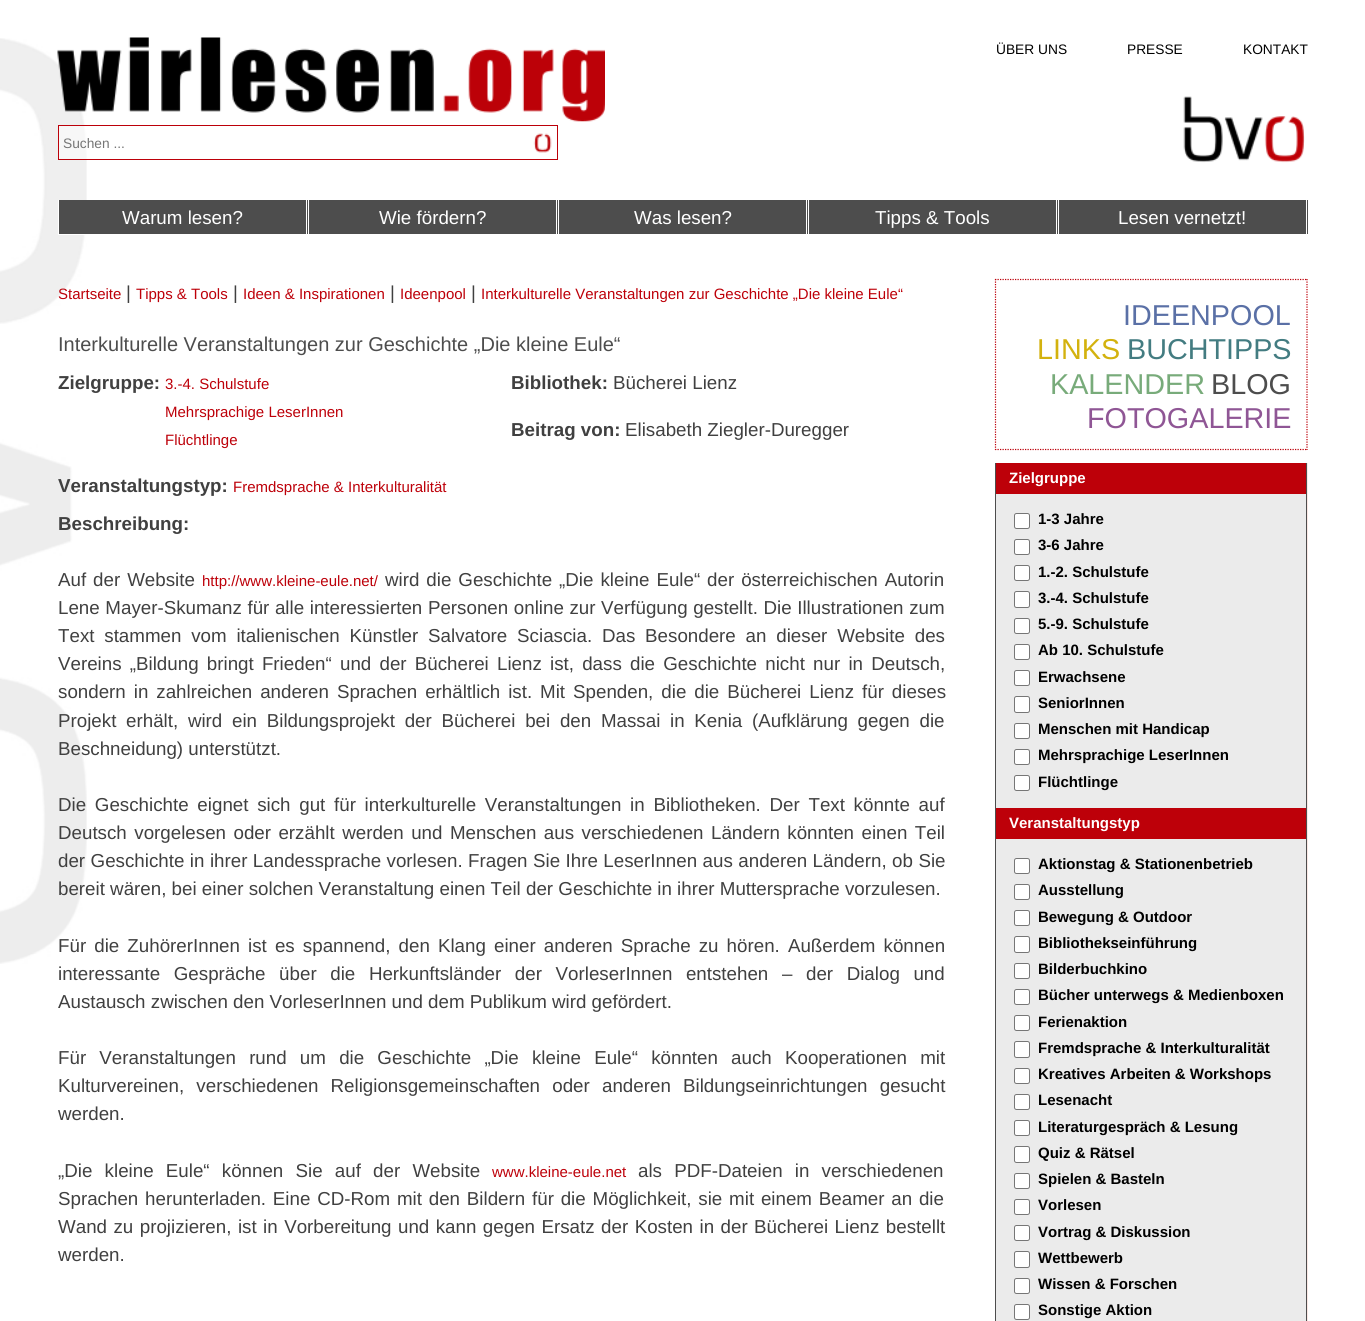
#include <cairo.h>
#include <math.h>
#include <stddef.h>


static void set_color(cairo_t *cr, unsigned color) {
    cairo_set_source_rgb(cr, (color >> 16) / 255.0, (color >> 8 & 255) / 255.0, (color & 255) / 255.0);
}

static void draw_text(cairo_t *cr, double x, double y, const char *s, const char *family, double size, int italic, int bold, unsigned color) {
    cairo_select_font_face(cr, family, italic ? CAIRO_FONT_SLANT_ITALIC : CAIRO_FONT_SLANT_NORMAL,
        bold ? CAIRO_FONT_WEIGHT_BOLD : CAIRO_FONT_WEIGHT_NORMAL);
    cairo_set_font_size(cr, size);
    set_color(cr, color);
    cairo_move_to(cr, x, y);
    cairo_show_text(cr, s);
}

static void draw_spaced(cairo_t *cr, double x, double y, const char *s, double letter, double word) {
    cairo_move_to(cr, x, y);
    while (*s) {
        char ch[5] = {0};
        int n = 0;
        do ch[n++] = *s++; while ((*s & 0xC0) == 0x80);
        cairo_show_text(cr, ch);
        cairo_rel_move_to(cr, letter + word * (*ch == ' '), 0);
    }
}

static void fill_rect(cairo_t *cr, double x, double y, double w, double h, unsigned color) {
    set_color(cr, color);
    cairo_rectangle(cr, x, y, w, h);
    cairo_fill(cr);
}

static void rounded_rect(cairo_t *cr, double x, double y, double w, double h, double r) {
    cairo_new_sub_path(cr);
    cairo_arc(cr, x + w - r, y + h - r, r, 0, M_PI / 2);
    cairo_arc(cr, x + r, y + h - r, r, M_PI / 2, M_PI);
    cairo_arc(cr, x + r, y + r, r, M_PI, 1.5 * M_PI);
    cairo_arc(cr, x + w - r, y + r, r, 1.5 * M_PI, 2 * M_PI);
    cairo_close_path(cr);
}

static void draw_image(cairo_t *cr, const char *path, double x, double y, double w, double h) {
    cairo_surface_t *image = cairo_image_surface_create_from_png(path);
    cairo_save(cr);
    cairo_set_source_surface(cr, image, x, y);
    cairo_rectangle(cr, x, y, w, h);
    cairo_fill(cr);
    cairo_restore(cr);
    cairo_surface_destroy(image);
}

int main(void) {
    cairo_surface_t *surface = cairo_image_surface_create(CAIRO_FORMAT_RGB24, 1365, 1321);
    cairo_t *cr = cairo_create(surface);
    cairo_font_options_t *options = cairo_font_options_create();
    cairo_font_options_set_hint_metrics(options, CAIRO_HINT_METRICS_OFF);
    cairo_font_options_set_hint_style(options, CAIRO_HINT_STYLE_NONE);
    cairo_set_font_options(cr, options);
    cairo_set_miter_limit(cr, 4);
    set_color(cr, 0xFFFFFF);
    cairo_paint(cr);
    draw_image(cr, "assets/img1.png", 0, 38, 87, 926);
    draw_image(cr, "assets/img2.png", 57, 37, 548, 85);
    draw_text(cr, 996, 54, "ÜBER UNS", "Liberation Sans", 13.75, 0, 0, 0x000000);
    draw_text(cr, 1127, 54, "PRESSE", "Liberation Sans", 13.75, 0, 0, 0x000000);
    draw_text(cr, 1243, 54, "KONTAKT", "Liberation Sans", 13.75, 0, 0, 0x000000);
    cairo_set_source_rgba(cr, 1, 1, 1, 0.5);
    cairo_rectangle(cr, 59, 126, 28, 33);
    cairo_fill(cr);
    cairo_rectangle(cr, 58.5, 125.5, 499, 34);
    set_color(cr, 0xBC0009);
    cairo_set_line_width(cr, 1);
    cairo_stroke(cr);
    draw_text(cr, 63, 148, "Suchen ...", "Liberation Sans", 13.75, 0, 0, 0x757575);
    draw_image(cr, "assets/img3.png", 533, 133, 19, 20);
    draw_image(cr, "assets/img4.png", 1183, 96, 122, 67);
    fill_rect(cr, 59, 200, 249, 34, 0x4D4D4D);
    fill_rect(cr, 306, 200, 1, 35, 0xFFFFFF);
    fill_rect(cr, 58, 234, 27, 1, 0xFFFFFF);
    fill_rect(cr, 58, 200, 1, 35, 0xFFFFFF);
    draw_text(cr, 122, 224, "Warum lesen?", "Liberation Sans", 18.75, 0, 0, 0xFFFFFF);
    fill_rect(cr, 309, 200, 249, 34, 0x4D4D4D);
    fill_rect(cr, 556, 200, 1, 35, 0xFFFFFF);
    draw_text(cr, 379, 224, "Wie fördern?", "Liberation Sans", 18.75, 0, 0, 0xFFFFFF);
    fill_rect(cr, 559, 200, 249, 34, 0x4D4D4D);
    fill_rect(cr, 806, 200, 1, 35, 0xFFFFFF);
    draw_text(cr, 634, 224, "Was lesen?", "Liberation Sans", 18.75, 0, 0, 0xFFFFFF);
    fill_rect(cr, 809, 200, 249, 34, 0x4D4D4D);
    fill_rect(cr, 1056, 200, 1, 35, 0xFFFFFF);
    draw_text(cr, 875, 224, "Tipps & Tools", "Liberation Sans", 18.75, 0, 0, 0xFFFFFF);
    fill_rect(cr, 1059, 200, 249, 34, 0x4D4D4D);
    fill_rect(cr, 1306, 200, 1, 35, 0xFFFFFF);
    draw_text(cr, 1118, 224, "Lesen vernetzt!", "Liberation Sans", 18.75, 0, 0, 0xFFFFFF);
    draw_text(cr, 58, 299, "Startseite", "Liberation Sans", 15, 0, 0, 0xBD0009);
    draw_text(cr, 126, 299, "|", "Liberation Sans", 18.75, 0, 0, 0x404040);
    draw_text(cr, 136, 299, "Tipps & Tools", "Liberation Sans", 15, 0, 0, 0xBD0009);
    draw_text(cr, 233, 299, "|", "Liberation Sans", 18.75, 0, 0, 0x404040);
    draw_text(cr, 243, 299, "Ideen & Inspirationen", "Liberation Sans", 15, 0, 0, 0xBD0009);
    draw_text(cr, 390, 299, "|", "Liberation Sans", 18.75, 0, 0, 0x404040);
    draw_text(cr, 400, 299, "Ideenpool", "Liberation Sans", 15, 0, 0, 0xBD0009);
    draw_text(cr, 471, 299, "|", "Liberation Sans", 18.75, 0, 0, 0x404040);
    draw_text(cr, 481, 299, "Interkulturelle Veranstaltungen zur Geschichte „Die kleine Eule“", "Liberation Sans", 15, 0, 0, 0xBD0009);
    draw_text(cr, 58, 351, "Interkulturelle Veranstaltungen zur Geschichte „Die kleine Eule“", "Liberation Sans", 20, 0, 0, 0x4D4D4D);
    draw_text(cr, 58, 389, "Zielgruppe:", "Liberation Sans", 18.75, 0, 1, 0x404040);
    draw_text(cr, 165, 389, "3.-4. Schulstufe", "Liberation Sans", 15, 0, 0, 0xBD0009);
    draw_text(cr, 165, 417, "Mehrsprachige LeserInnen", "Liberation Sans", 15, 0, 0, 0xBD0009);
    draw_text(cr, 165, 445, "Flüchtlinge", "Liberation Sans", 15, 0, 0, 0xBD0009);
    draw_text(cr, 58, 492, "Veranstaltungstyp:", "Liberation Sans", 18.75, 0, 1, 0x404040);
    draw_text(cr, 233, 492, "Fremdsprache & Interkulturalität", "Liberation Sans", 15, 0, 0, 0xBD0009);
    draw_text(cr, 511, 389, "Bibliothek:", "Liberation Sans", 18.75, 0, 1, 0x404040);
    draw_text(cr, 613, 389, "Bücherei Lienz", "Liberation Sans", 18.75, 0, 0, 0x404040);
    draw_text(cr, 511, 436, "Beitrag von:", "Liberation Sans", 18.75, 0, 1, 0x404040);
    draw_text(cr, 625, 436, "Elisabeth Ziegler-Duregger", "Liberation Sans", 18.75, 0, 0, 0x404040);
    draw_text(cr, 58, 530, "Beschreibung:", "Liberation Sans", 18.75, 0, 1, 0x404040);
    cairo_select_font_face(cr, "Liberation Sans", CAIRO_FONT_SLANT_NORMAL, CAIRO_FONT_WEIGHT_NORMAL);
    draw_spaced(cr, 58, 586, "Auf der Website", 0, 1.75);
    draw_text(cr, 202, 586, "http://www.kleine-eule.net/", "Liberation Sans", 15, 0, 0, 0xBD0009);
    cairo_set_font_size(cr, 18.75);
    set_color(cr, 0x404040);
    draw_spaced(cr, 385, 586, "wird die Geschichte „Die kleine Eule“ der österreichischen Autorin", 0, 1.75);
    draw_spaced(cr, 58, 614, "Lene Mayer-Skumanz für alle interessierten Personen online zur Verfügung gestellt. Die Illustrationen zum", 0, 0.4);
    draw_spaced(cr, 58, 642, "Text stammen vom italienischen Künstler Salvatore Sciascia. Das Besondere an dieser Website des", 0, 4.6);
    draw_spaced(cr, 58, 670, "Vereins „Bildung bringt Frieden“ und der Bücherei Lienz ist, dass die Geschichte nicht nur in Deutsch,", 0, 3);
    draw_spaced(cr, 58, 698, "sondern in zahlreichen anderen Sprachen erhältlich ist. Mit Spenden, die die Bücherei Lienz für dieses", 0, 2.75);
    draw_spaced(cr, 58, 727, "Projekt erhält, wird ein Bildungsprojekt der Bücherei bei den Massai in Kenia (Aufklärung gegen die", 0, 4.5);
    draw_text(cr, 58, 755, "Beschneidung) unterstützt.", "Liberation Sans", 18.75, 0, 0, 0x404040);
    draw_spaced(cr, 58, 811, "Die Geschichte eignet sich gut für interkulturelle Veranstaltungen in Bibliotheken. Der Text könnte auf", 0, 3.5);
    draw_spaced(cr, 58, 839, "Deutsch vorgelesen oder erzählt werden und Menschen aus verschiedenen Ländern könnten einen Teil", 0, 2.25);
    draw_spaced(cr, 58, 867, "der Geschichte in ihrer Landessprache vorlesen. Fragen Sie Ihre LeserInnen aus anderen Ländern, ob Sie", 0, 0.25);
    draw_text(cr, 58, 895, "bereit wären, bei einer solchen Veranstaltung einen Teil der Geschichte in ihrer Muttersprache vorzulesen.", "Liberation Sans", 18.75, 0, 0, 0x404040);
    draw_spaced(cr, 58, 952, "Für die ZuhörerInnen ist es spannend, den Klang einer anderen Sprache zu hören. Außerdem können", 0, 2.9);
    draw_spaced(cr, 58, 980, "interessante Gespräche über die Herkunftsländer der VorleserInnen entstehen – der Dialog und", 0, 8.4);
    draw_text(cr, 58, 1008, "Austausch zwischen den VorleserInnen und dem Publikum wird gefördert.", "Liberation Sans", 18.75, 0, 0, 0x404040);
    draw_spaced(cr, 58, 1064, "Für Veranstaltungen rund um die Geschichte „Die kleine Eule“ könnten auch Kooperationen mit", 0, 8);
    draw_spaced(cr, 58, 1092, "Kulturvereinen, verschiedenen Religionsgemeinschaften oder anderen Bildungseinrichtungen gesucht", 0, 7);
    draw_text(cr, 58, 1120, "werden.", "Liberation Sans", 18.75, 0, 0, 0x404040);
    draw_spaced(cr, 58, 1177, "„Die kleine Eule“ können Sie auf der Website", 0, 7);
    draw_text(cr, 492, 1177, "www.kleine-eule.net", "Liberation Sans", 15, 0, 0, 0xBD0009);
    cairo_set_font_size(cr, 18.75);
    set_color(cr, 0x404040);
    draw_spaced(cr, 638, 1177, "als PDF-Dateien in verschiedenen", 0, 7);
    draw_spaced(cr, 58, 1205, "Sprachen herunterladen. Eine CD-Rom mit den Bildern für die Möglichkeit, sie mit einem Beamer an die", 0, 1.6);
    draw_spaced(cr, 58, 1233, "Wand zu projizieren, ist in Vorbereitung und kann gegen Ersatz der Kosten in der Bücherei Lienz bestellt", 0, 1.25);
    draw_text(cr, 58, 1261, "werden.", "Liberation Sans", 18.75, 0, 0, 0x404040);
    cairo_new_path(cr);
    cairo_move_to(cr, 995, 279.5);
    cairo_line_to(cr, 1307.5, 279.5);
    set_color(cr, 0xBC0009);
    cairo_set_line_width(cr, 1.2);
    cairo_set_dash(cr, (double[]){1.25, 1.25}, 2, 0);
    cairo_stroke(cr);
    cairo_new_path(cr);
    cairo_move_to(cr, 1307, 279);
    cairo_line_to(cr, 1307, 450);
    cairo_stroke(cr);
    cairo_new_path(cr);
    cairo_move_to(cr, 995, 449.5);
    cairo_line_to(cr, 1307.5, 449.5);
    cairo_stroke(cr);
    cairo_new_path(cr);
    cairo_move_to(cr, 995.5, 279);
    cairo_line_to(cr, 995.5, 450);
    cairo_stroke(cr);
    draw_text(cr, 1123, 325, "IDEENPOOL", "Liberation Sans", 28.75, 0, 0, 0x5A70A6);
    draw_text(cr, 1037, 359, "LINKS", "Liberation Sans", 28.75, 0, 0, 0xD3B20E);
    draw_text(cr, 1127, 359, "BUCHTIPPS", "Liberation Sans", 28.75, 0, 0, 0x437C81);
    draw_text(cr, 1050, 394, "KALENDER", "Liberation Sans", 28.75, 0, 0, 0x78AB7A);
    draw_text(cr, 1211, 394, "BLOG", "Liberation Sans", 28.75, 0, 0, 0x4D4D4D);
    draw_text(cr, 1087, 428, "FOTOGALERIE", "Liberation Sans", 28.75, 0, 0, 0x8F5695);
    fill_rect(cr, 1307, 463, 1, 858, 0xFBE8E4);
    fill_rect(cr, 1306, 463, 1, 858, 0x4D4D4D);
    fill_rect(cr, 995, 463, 1, 858, 0x4D4D4D);
    fill_rect(cr, 996, 494, 310, 827, 0xEBEBEB);
    fill_rect(cr, 996, 463, 310, 31, 0xBD0009);
    draw_text(cr, 1009, 483, "Zielgruppe", "Liberation Sans", 15, 0, 1, 0xFFFFFF);
    rounded_rect(cr, 1014.5, 513.5, 15, 15, 2);
    cairo_fill_preserve(cr);
    set_color(cr, 0x767676);
    cairo_set_line_width(cr, 1);
    cairo_set_dash(cr, NULL, 0, 0);
    cairo_stroke(cr);
    draw_text(cr, 1038, 524, "1-3 Jahre", "Liberation Sans", 15, 0, 1, 0x000000);
    set_color(cr, 0xFFFFFF);
    rounded_rect(cr, 1014.5, 539.5, 15, 15, 2);
    cairo_fill_preserve(cr);
    set_color(cr, 0x767676);
    cairo_stroke(cr);
    draw_text(cr, 1038, 550, "3-6 Jahre", "Liberation Sans", 15, 0, 1, 0x000000);
    set_color(cr, 0xFFFFFF);
    rounded_rect(cr, 1014.5, 565.5, 15, 15, 2);
    cairo_fill_preserve(cr);
    set_color(cr, 0x767676);
    cairo_stroke(cr);
    draw_text(cr, 1038, 577, "1.-2. Schulstufe", "Liberation Sans", 15, 0, 1, 0x000000);
    set_color(cr, 0xFFFFFF);
    rounded_rect(cr, 1014.5, 591.5, 15, 16, 2);
    cairo_fill_preserve(cr);
    set_color(cr, 0x767676);
    cairo_stroke(cr);
    draw_text(cr, 1038, 603, "3.-4. Schulstufe", "Liberation Sans", 15, 0, 1, 0x000000);
    set_color(cr, 0xFFFFFF);
    rounded_rect(cr, 1014.5, 618.5, 15, 15, 2);
    cairo_fill_preserve(cr);
    set_color(cr, 0x767676);
    cairo_stroke(cr);
    draw_text(cr, 1038, 629, "5.-9. Schulstufe", "Liberation Sans", 15, 0, 1, 0x000000);
    set_color(cr, 0xFFFFFF);
    rounded_rect(cr, 1014.5, 644.5, 15, 15, 2);
    cairo_fill_preserve(cr);
    set_color(cr, 0x767676);
    cairo_stroke(cr);
    draw_text(cr, 1038, 655, "Ab 10. Schulstufe", "Liberation Sans", 15, 0, 1, 0x000000);
    set_color(cr, 0xFFFFFF);
    rounded_rect(cr, 1014.5, 670.5, 15, 15, 2);
    cairo_fill_preserve(cr);
    set_color(cr, 0x767676);
    cairo_stroke(cr);
    draw_text(cr, 1038, 682, "Erwachsene", "Liberation Sans", 15, 0, 1, 0x000000);
    set_color(cr, 0xFFFFFF);
    rounded_rect(cr, 1014.5, 696.5, 15, 16, 2);
    cairo_fill_preserve(cr);
    set_color(cr, 0x767676);
    cairo_stroke(cr);
    draw_text(cr, 1038, 708, "SeniorInnen", "Liberation Sans", 15, 0, 1, 0x000000);
    set_color(cr, 0xFFFFFF);
    rounded_rect(cr, 1014.5, 723.5, 15, 15, 2);
    cairo_fill_preserve(cr);
    set_color(cr, 0x767676);
    cairo_stroke(cr);
    draw_text(cr, 1038, 734, "Menschen mit Handicap", "Liberation Sans", 15, 0, 1, 0x000000);
    set_color(cr, 0xFFFFFF);
    rounded_rect(cr, 1014.5, 749.5, 15, 15, 2);
    cairo_fill_preserve(cr);
    set_color(cr, 0x767676);
    cairo_stroke(cr);
    draw_text(cr, 1038, 760, "Mehrsprachige LeserInnen", "Liberation Sans", 15, 0, 1, 0x000000);
    set_color(cr, 0xFFFFFF);
    rounded_rect(cr, 1014.5, 775.5, 15, 15, 2);
    cairo_fill_preserve(cr);
    set_color(cr, 0x767676);
    cairo_stroke(cr);
    draw_text(cr, 1038, 787, "Flüchtlinge", "Liberation Sans", 15, 0, 1, 0x000000);
    fill_rect(cr, 996, 808, 310, 31, 0xBD0009);
    draw_text(cr, 1009, 828, "Veranstaltungstyp", "Liberation Sans", 15, 0, 1, 0xFFFFFF);
    rounded_rect(cr, 1014.5, 858.5, 15, 15, 2);
    cairo_fill_preserve(cr);
    set_color(cr, 0x767676);
    cairo_stroke(cr);
    draw_text(cr, 1038, 869, "Aktionstag & Stationenbetrieb", "Liberation Sans", 15, 0, 1, 0x000000);
    set_color(cr, 0xFFFFFF);
    rounded_rect(cr, 1014.5, 884.5, 15, 15, 2);
    cairo_fill_preserve(cr);
    set_color(cr, 0x767676);
    cairo_stroke(cr);
    draw_text(cr, 1038, 895, "Ausstellung", "Liberation Sans", 15, 0, 1, 0x000000);
    set_color(cr, 0xFFFFFF);
    rounded_rect(cr, 1014.5, 910.5, 15, 15, 2);
    cairo_fill_preserve(cr);
    set_color(cr, 0x767676);
    cairo_stroke(cr);
    draw_text(cr, 1038, 922, "Bewegung & Outdoor", "Liberation Sans", 15, 0, 1, 0x000000);
    set_color(cr, 0xFFFFFF);
    rounded_rect(cr, 1014.5, 936.5, 15, 16, 2);
    cairo_fill_preserve(cr);
    set_color(cr, 0x767676);
    cairo_stroke(cr);
    draw_text(cr, 1038, 948, "Bibliothekseinführung", "Liberation Sans", 15, 0, 1, 0x000000);
    set_color(cr, 0xFFFFFF);
    rounded_rect(cr, 1014.5, 963.5, 15, 15, 2);
    cairo_fill_preserve(cr);
    set_color(cr, 0x767676);
    cairo_stroke(cr);
    draw_text(cr, 1038, 974, "Bilderbuchkino", "Liberation Sans", 15, 0, 1, 0x000000);
    set_color(cr, 0xFFFFFF);
    rounded_rect(cr, 1014.5, 989.5, 15, 15, 2);
    cairo_fill_preserve(cr);
    set_color(cr, 0x767676);
    cairo_stroke(cr);
    draw_text(cr, 1038, 1000, "Bücher unterwegs & Medienboxen", "Liberation Sans", 15, 0, 1, 0x000000);
    set_color(cr, 0xFFFFFF);
    rounded_rect(cr, 1014.5, 1015.5, 15, 15, 2);
    cairo_fill_preserve(cr);
    set_color(cr, 0x767676);
    cairo_stroke(cr);
    draw_text(cr, 1038, 1027, "Ferienaktion", "Liberation Sans", 15, 0, 1, 0x000000);
    set_color(cr, 0xFFFFFF);
    rounded_rect(cr, 1014.5, 1041.5, 15, 16, 2);
    cairo_fill_preserve(cr);
    set_color(cr, 0x767676);
    cairo_stroke(cr);
    draw_text(cr, 1038, 1053, "Fremdsprache & Interkulturalität", "Liberation Sans", 15, 0, 1, 0x000000);
    set_color(cr, 0xFFFFFF);
    rounded_rect(cr, 1014.5, 1068.5, 15, 15, 2);
    cairo_fill_preserve(cr);
    set_color(cr, 0x767676);
    cairo_stroke(cr);
    draw_text(cr, 1038, 1079, "Kreatives Arbeiten & Workshops", "Liberation Sans", 15, 0, 1, 0x000000);
    set_color(cr, 0xFFFFFF);
    rounded_rect(cr, 1014.5, 1094.5, 15, 15, 2);
    cairo_fill_preserve(cr);
    set_color(cr, 0x767676);
    cairo_stroke(cr);
    draw_text(cr, 1038, 1105, "Lesenacht", "Liberation Sans", 15, 0, 1, 0x000000);
    set_color(cr, 0xFFFFFF);
    rounded_rect(cr, 1014.5, 1120.5, 15, 15, 2);
    cairo_fill_preserve(cr);
    set_color(cr, 0x767676);
    cairo_stroke(cr);
    draw_text(cr, 1038, 1132, "Literaturgespräch & Lesung", "Liberation Sans", 15, 0, 1, 0x000000);
    set_color(cr, 0xFFFFFF);
    rounded_rect(cr, 1014.5, 1146.5, 15, 16, 2);
    cairo_fill_preserve(cr);
    set_color(cr, 0x767676);
    cairo_stroke(cr);
    draw_text(cr, 1038, 1158, "Quiz & Rätsel", "Liberation Sans", 15, 0, 1, 0x000000);
    set_color(cr, 0xFFFFFF);
    rounded_rect(cr, 1014.5, 1173.5, 15, 15, 2);
    cairo_fill_preserve(cr);
    set_color(cr, 0x767676);
    cairo_stroke(cr);
    draw_text(cr, 1038, 1184, "Spielen & Basteln", "Liberation Sans", 15, 0, 1, 0x000000);
    set_color(cr, 0xFFFFFF);
    rounded_rect(cr, 1014.5, 1199.5, 15, 15, 2);
    cairo_fill_preserve(cr);
    set_color(cr, 0x767676);
    cairo_stroke(cr);
    draw_text(cr, 1038, 1210, "Vorlesen", "Liberation Sans", 15, 0, 1, 0x000000);
    set_color(cr, 0xFFFFFF);
    rounded_rect(cr, 1014.5, 1225.5, 15, 15, 2);
    cairo_fill_preserve(cr);
    set_color(cr, 0x767676);
    cairo_stroke(cr);
    draw_text(cr, 1038, 1237, "Vortrag & Diskussion", "Liberation Sans", 15, 0, 1, 0x000000);
    set_color(cr, 0xFFFFFF);
    rounded_rect(cr, 1014.5, 1251.5, 15, 16, 2);
    cairo_fill_preserve(cr);
    set_color(cr, 0x767676);
    cairo_stroke(cr);
    draw_text(cr, 1038, 1263, "Wettbewerb", "Liberation Sans", 15, 0, 1, 0x000000);
    set_color(cr, 0xFFFFFF);
    rounded_rect(cr, 1014.5, 1278.5, 15, 15, 2);
    cairo_fill_preserve(cr);
    set_color(cr, 0x767676);
    cairo_stroke(cr);
    draw_text(cr, 1038, 1289, "Wissen & Forschen", "Liberation Sans", 15, 0, 1, 0x000000);
    set_color(cr, 0xFFFFFF);
    rounded_rect(cr, 1014.5, 1304.5, 15, 15, 2);
    cairo_fill_preserve(cr);
    set_color(cr, 0x767676);
    cairo_stroke(cr);
    draw_text(cr, 1038, 1315, "Sonstige Aktion", "Liberation Sans", 15, 0, 1, 0x000000);
    cairo_surface_write_to_png(surface, "output.png");
    cairo_font_options_destroy(options);
    cairo_destroy(cr);
    cairo_surface_destroy(surface);
    return 0;
}
